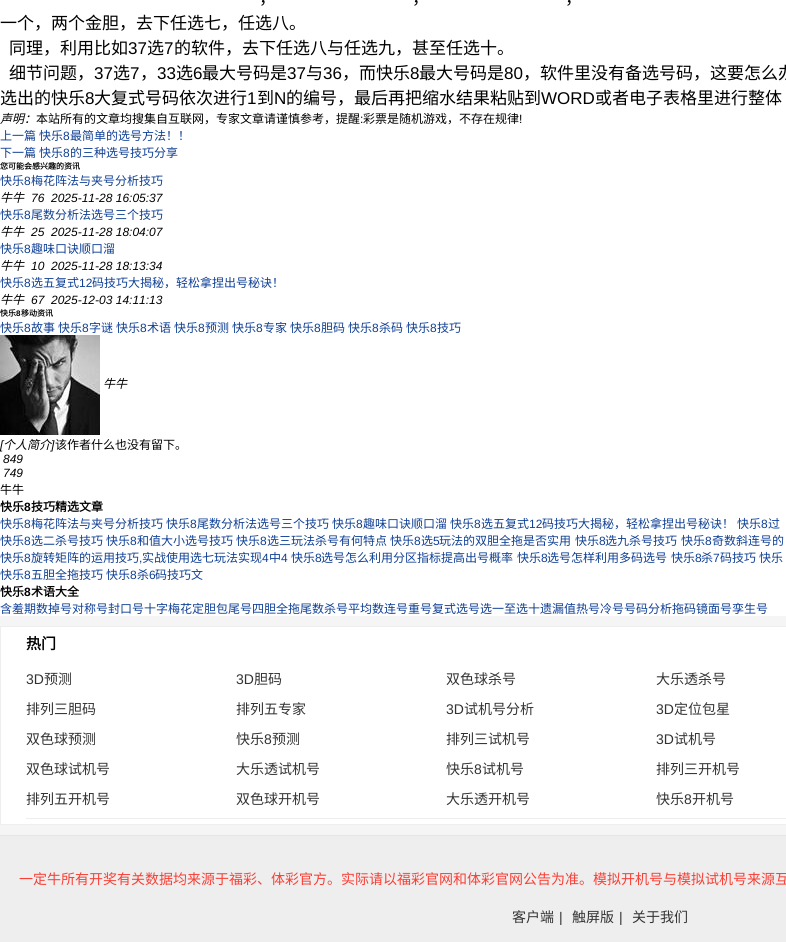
#include <cairo.h>
#include <math.h>
#include <stddef.h>


static void set_color(cairo_t *cr, unsigned color) {
    cairo_set_source_rgb(cr, (color >> 16) / 255.0, (color >> 8 & 255) / 255.0, (color & 255) / 255.0);
}

static void draw_text(cairo_t *cr, double x, double y, const char *s, const char *family, double size, int italic, int bold, unsigned color) {
    cairo_select_font_face(cr, family, italic ? CAIRO_FONT_SLANT_ITALIC : CAIRO_FONT_SLANT_NORMAL,
        bold ? CAIRO_FONT_WEIGHT_BOLD : CAIRO_FONT_WEIGHT_NORMAL);
    cairo_set_font_size(cr, size);
    set_color(cr, color);
    cairo_move_to(cr, x, y);
    cairo_show_text(cr, s);
}

static void fill_rect(cairo_t *cr, double x, double y, double w, double h, unsigned color) {
    set_color(cr, color);
    cairo_rectangle(cr, x, y, w, h);
    cairo_fill(cr);
}

static void draw_image(cairo_t *cr, const char *path, double x, double y, double w, double h) {
    cairo_surface_t *image = cairo_image_surface_create_from_png(path);
    cairo_save(cr);
    cairo_set_source_surface(cr, image, x, y);
    cairo_rectangle(cr, x, y, w, h);
    cairo_fill(cr);
    cairo_restore(cr);
    cairo_surface_destroy(image);
}

int main(void) {
    cairo_surface_t *surface = cairo_image_surface_create(CAIRO_FORMAT_RGB24, 786, 942);
    cairo_t *cr = cairo_create(surface);
    cairo_font_options_t *options = cairo_font_options_create();
    cairo_font_options_set_hint_metrics(options, CAIRO_HINT_METRICS_OFF);
    cairo_font_options_set_hint_style(options, CAIRO_HINT_STYLE_NONE);
    cairo_set_font_options(cr, options);
    cairo_set_miter_limit(cr, 4);
    set_color(cr, 0xFFFFFF);
    cairo_paint(cr);
    draw_text(cr, 259, 4, "，", "Noto Sans CJK SC", 17, 0, 0, 0x000000);
    draw_text(cr, 412, 4, "，", "Noto Sans CJK SC", 17, 0, 0, 0x000000);
    draw_text(cr, 565, 4, "，", "Noto Sans CJK SC", 17, 0, 0, 0x000000);
    draw_text(cr, 0, 29, "一个，两个金胆，去下任选七，任选八。", "Noto Sans CJK SC", 17, 0, 0, 0x000000);
    draw_text(cr, 9, 54, "同理，利用比如", "Noto Sans CJK SC", 17, 0, 0, 0x000000);
    draw_text(cr, 128, 54, "37", "Liberation Sans", 17, 0, 0, 0x000000);
    draw_text(cr, 147, 54, "选", "Noto Sans CJK SC", 17, 0, 0, 0x000000);
    draw_text(cr, 164, 54, "7", "Liberation Sans", 17, 0, 0, 0x000000);
    draw_text(cr, 174, 54, "的软件，去下任选八与任选九，甚至任选十。", "Noto Sans CJK SC", 17, 0, 0, 0x000000);
    draw_text(cr, 9, 79, "细节问题，", "Noto Sans CJK SC", 17, 0, 0, 0x000000);
    draw_text(cr, 94, 79, "37", "Liberation Sans", 17, 0, 0, 0x000000);
    draw_text(cr, 113, 79, "选", "Noto Sans CJK SC", 17, 0, 0, 0x000000);
    draw_text(cr, 130, 79, "7", "Liberation Sans", 17, 0, 0, 0x000000);
    draw_text(cr, 140, 79, "，", "Noto Sans CJK SC", 17, 0, 0, 0x000000);
    draw_text(cr, 157, 79, "33", "Liberation Sans", 17, 0, 0, 0x000000);
    draw_text(cr, 176, 79, "选", "Noto Sans CJK SC", 17, 0, 0, 0x000000);
    draw_text(cr, 193, 79, "6", "Liberation Sans", 17, 0, 0, 0x000000);
    draw_text(cr, 202, 79, "最大号码是", "Noto Sans CJK SC", 17, 0, 0, 0x000000);
    draw_text(cr, 287, 79, "37", "Liberation Sans", 17, 0, 0, 0x000000);
    draw_text(cr, 306, 79, "与", "Noto Sans CJK SC", 17, 0, 0, 0x000000);
    draw_text(cr, 323, 79, "36", "Liberation Sans", 17, 0, 0, 0x000000);
    draw_text(cr, 342, 79, "，而快乐", "Noto Sans CJK SC", 17, 0, 0, 0x000000);
    draw_text(cr, 410, 79, "8", "Liberation Sans", 17, 0, 0, 0x000000);
    draw_text(cr, 419, 79, "最大号码是", "Noto Sans CJK SC", 17, 0, 0, 0x000000);
    draw_text(cr, 504, 79, "80", "Liberation Sans", 17, 0, 0, 0x000000);
    draw_text(cr, 523, 79, "，软件里没有备选号码，这要怎么办", "Noto Sans CJK SC", 17, 0, 0, 0x000000);
    draw_text(cr, 0, 104, "选出的快乐", "Noto Sans CJK SC", 17, 0, 0, 0x000000);
    draw_text(cr, 85, 104, "8", "Liberation Sans", 17, 0, 0, 0x000000);
    draw_text(cr, 94, 104, "大复式号码依次进行", "Noto Sans CJK SC", 17, 0, 0, 0x000000);
    draw_text(cr, 247, 104, "1", "Liberation Sans", 17, 0, 0, 0x000000);
    draw_text(cr, 257, 104, "到", "Noto Sans CJK SC", 17, 0, 0, 0x000000);
    draw_text(cr, 274, 104, "N", "Liberation Sans", 17, 0, 0, 0x000000);
    draw_text(cr, 286, 104, "的编号，最后再把缩水结果粘贴到", "Noto Sans CJK SC", 17, 0, 0, 0x000000);
    draw_text(cr, 541, 104, "WORD", "Liberation Sans", 17, 0, 0, 0x000000);
    draw_text(cr, 595, 104, "或者电子表格里进行整体", "Noto Sans CJK SC", 17, 0, 0, 0x000000);
    draw_text(cr, 0, 123, "声明：", "Noto Sans CJK SC", 12, 1, 0, 0x000000);
    draw_text(cr, 36, 123, "本站所有的文章均搜集自互联网，专家文章请谨慎参考，提醒", "Noto Sans CJK SC", 12, 0, 0, 0x000000);
    draw_text(cr, 360, 123, ":", "Liberation Sans", 12, 0, 0, 0x000000);
    draw_text(cr, 363, 123, "彩票是随机游戏，不存在规律", "Noto Sans CJK SC", 12, 0, 0, 0x000000);
    draw_text(cr, 519, 123, "!", "Liberation Sans", 12, 0, 0, 0x000000);
    draw_text(cr, 0, 140, "上一篇", "Noto Sans CJK SC", 12, 0, 0, 0x0F3F94);
    draw_text(cr, 39, 140, "快乐", "Noto Sans CJK SC", 12, 0, 0, 0x0F3F94);
    draw_text(cr, 63, 140, "8", "Liberation Sans", 12, 0, 0, 0x0F3F94);
    draw_text(cr, 70, 140, "最简单的选号方法！！", "Noto Sans CJK SC", 12, 0, 0, 0x0F3F94);
    draw_text(cr, 0, 157, "下一篇", "Noto Sans CJK SC", 12, 0, 0, 0x0F3F94);
    draw_text(cr, 39, 157, "快乐", "Noto Sans CJK SC", 12, 0, 0, 0x0F3F94);
    draw_text(cr, 63, 157, "8", "Liberation Sans", 12, 0, 0, 0x0F3F94);
    draw_text(cr, 70, 157, "的三种选号技巧分享", "Noto Sans CJK SC", 12, 0, 0, 0x0F3F94);
    draw_text(cr, 0, 169, "您可能会感兴趣的资讯", "Noto Sans CJK SC", 8, 0, 1, 0x000000);
    draw_text(cr, 0, 185, "快乐", "Noto Sans CJK SC", 12, 0, 0, 0x0F3F94);
    draw_text(cr, 24, 185, "8", "Liberation Sans", 12, 0, 0, 0x0F3F94);
    draw_text(cr, 31, 185, "梅花阵法与夹号分析技巧", "Noto Sans CJK SC", 12, 0, 0, 0x0F3F94);
    draw_text(cr, 0, 202, "牛牛", "Noto Sans CJK SC", 12, 1, 0, 0x000000);
    draw_text(cr, 31, 202, "76", "Liberation Sans", 12, 1, 0, 0x000000);
    draw_text(cr, 51, 202, "2025-11-28 16:05:37", "Liberation Sans", 12, 1, 0, 0x000000);
    draw_text(cr, 0, 219, "快乐", "Noto Sans CJK SC", 12, 0, 0, 0x0F3F94);
    draw_text(cr, 24, 219, "8", "Liberation Sans", 12, 0, 0, 0x0F3F94);
    draw_text(cr, 31, 219, "尾数分析法选号三个技巧", "Noto Sans CJK SC", 12, 0, 0, 0x0F3F94);
    draw_text(cr, 0, 236, "牛牛", "Noto Sans CJK SC", 12, 1, 0, 0x000000);
    draw_text(cr, 31, 236, "25", "Liberation Sans", 12, 1, 0, 0x000000);
    draw_text(cr, 51, 236, "2025-11-28 18:04:07", "Liberation Sans", 12, 1, 0, 0x000000);
    draw_text(cr, 0, 253, "快乐", "Noto Sans CJK SC", 12, 0, 0, 0x0F3F94);
    draw_text(cr, 24, 253, "8", "Liberation Sans", 12, 0, 0, 0x0F3F94);
    draw_text(cr, 31, 253, "趣味口诀顺口溜", "Noto Sans CJK SC", 12, 0, 0, 0x0F3F94);
    draw_text(cr, 0, 270, "牛牛", "Noto Sans CJK SC", 12, 1, 0, 0x000000);
    draw_text(cr, 31, 270, "10", "Liberation Sans", 12, 1, 0, 0x000000);
    draw_text(cr, 51, 270, "2025-11-28 18:13:34", "Liberation Sans", 12, 1, 0, 0x000000);
    draw_text(cr, 0, 287, "快乐", "Noto Sans CJK SC", 12, 0, 0, 0x0F3F94);
    draw_text(cr, 24, 287, "8", "Liberation Sans", 12, 0, 0, 0x0F3F94);
    draw_text(cr, 31, 287, "选五复式", "Noto Sans CJK SC", 12, 0, 0, 0x0F3F94);
    draw_text(cr, 79, 287, "12", "Liberation Sans", 12, 0, 0, 0x0F3F94);
    draw_text(cr, 92, 287, "码技巧大揭秘，轻松拿捏出号秘诀！", "Noto Sans CJK SC", 12, 0, 0, 0x0F3F94);
    draw_text(cr, 0, 304, "牛牛", "Noto Sans CJK SC", 12, 1, 0, 0x000000);
    draw_text(cr, 31, 304, "67", "Liberation Sans", 12, 1, 0, 0x000000);
    draw_text(cr, 51, 304, "2025-12-03 14:11:13", "Liberation Sans", 12, 1, 0, 0x000000);
    draw_text(cr, 0, 316, "快乐", "Noto Sans CJK SC", 8, 0, 1, 0x000000);
    draw_text(cr, 16, 316, "8", "Liberation Sans", 8, 0, 1, 0x000000);
    draw_text(cr, 21, 316, "移动资讯", "Noto Sans CJK SC", 8, 0, 1, 0x000000);
    draw_text(cr, 0, 332, "快乐", "Noto Sans CJK SC", 12, 0, 0, 0x0F3F94);
    draw_text(cr, 24, 332, "8", "Liberation Sans", 12, 0, 0, 0x0F3F94);
    draw_text(cr, 31, 332, "故事", "Noto Sans CJK SC", 12, 0, 0, 0x0F3F94);
    draw_text(cr, 58, 332, "快乐", "Noto Sans CJK SC", 12, 0, 0, 0x0F3F94);
    draw_text(cr, 82, 332, "8", "Liberation Sans", 12, 0, 0, 0x0F3F94);
    draw_text(cr, 89, 332, "字谜", "Noto Sans CJK SC", 12, 0, 0, 0x0F3F94);
    draw_text(cr, 116, 332, "快乐", "Noto Sans CJK SC", 12, 0, 0, 0x0F3F94);
    draw_text(cr, 140, 332, "8", "Liberation Sans", 12, 0, 0, 0x0F3F94);
    draw_text(cr, 147, 332, "术语", "Noto Sans CJK SC", 12, 0, 0, 0x0F3F94);
    draw_text(cr, 174, 332, "快乐", "Noto Sans CJK SC", 12, 0, 0, 0x0F3F94);
    draw_text(cr, 198, 332, "8", "Liberation Sans", 12, 0, 0, 0x0F3F94);
    draw_text(cr, 205, 332, "预测", "Noto Sans CJK SC", 12, 0, 0, 0x0F3F94);
    draw_text(cr, 232, 332, "快乐", "Noto Sans CJK SC", 12, 0, 0, 0x0F3F94);
    draw_text(cr, 256, 332, "8", "Liberation Sans", 12, 0, 0, 0x0F3F94);
    draw_text(cr, 263, 332, "专家", "Noto Sans CJK SC", 12, 0, 0, 0x0F3F94);
    draw_text(cr, 290, 332, "快乐", "Noto Sans CJK SC", 12, 0, 0, 0x0F3F94);
    draw_text(cr, 314, 332, "8", "Liberation Sans", 12, 0, 0, 0x0F3F94);
    draw_text(cr, 321, 332, "胆码", "Noto Sans CJK SC", 12, 0, 0, 0x0F3F94);
    draw_text(cr, 348, 332, "快乐", "Noto Sans CJK SC", 12, 0, 0, 0x0F3F94);
    draw_text(cr, 372, 332, "8", "Liberation Sans", 12, 0, 0, 0x0F3F94);
    draw_text(cr, 379, 332, "杀码", "Noto Sans CJK SC", 12, 0, 0, 0x0F3F94);
    draw_text(cr, 406, 332, "快乐", "Noto Sans CJK SC", 12, 0, 0, 0x0F3F94);
    draw_text(cr, 430, 332, "8", "Liberation Sans", 12, 0, 0, 0x0F3F94);
    draw_text(cr, 437, 332, "技巧", "Noto Sans CJK SC", 12, 0, 0, 0x0F3F94);
    draw_image(cr, "assets/img1.png", 0, 335, 100, 100);
    draw_text(cr, 103, 388, "牛牛", "Noto Sans CJK SC", 12, 1, 0, 0x000000);
    draw_text(cr, 0, 449, "[", "Liberation Sans", 12, 1, 0, 0x000000);
    draw_text(cr, 3, 449, "个人简介", "Noto Sans CJK SC", 12, 1, 0, 0x000000);
    draw_text(cr, 51, 449, "]", "Liberation Sans", 12, 1, 0, 0x000000);
    draw_text(cr, 55, 449, "该作者什么也没有留下。", "Noto Sans CJK SC", 12, 0, 0, 0x000000);
    draw_text(cr, 3, 463, "849", "Liberation Sans", 12, 1, 0, 0x000000);
    draw_text(cr, 3, 477, "749", "Liberation Sans", 12, 1, 0, 0x000000);
    draw_text(cr, 0, 494, "牛牛", "Noto Sans CJK SC", 12, 0, 0, 0x000000);
    draw_text(cr, 0, 511, "快乐", "Noto Sans CJK SC", 12, 0, 1, 0x000000);
    draw_text(cr, 24, 511, "8", "Liberation Sans", 12, 0, 1, 0x000000);
    draw_text(cr, 31, 511, "技巧精选文章", "Noto Sans CJK SC", 12, 0, 1, 0x000000);
    draw_text(cr, 0, 528, "快乐", "Noto Sans CJK SC", 12, 0, 0, 0x0F3F94);
    draw_text(cr, 24, 528, "8", "Liberation Sans", 12, 0, 0, 0x0F3F94);
    draw_text(cr, 31, 528, "梅花阵法与夹号分析技巧", "Noto Sans CJK SC", 12, 0, 0, 0x0F3F94);
    draw_text(cr, 166, 528, "快乐", "Noto Sans CJK SC", 12, 0, 0, 0x0F3F94);
    draw_text(cr, 190, 528, "8", "Liberation Sans", 12, 0, 0, 0x0F3F94);
    draw_text(cr, 197, 528, "尾数分析法选号三个技巧", "Noto Sans CJK SC", 12, 0, 0, 0x0F3F94);
    draw_text(cr, 332, 528, "快乐", "Noto Sans CJK SC", 12, 0, 0, 0x0F3F94);
    draw_text(cr, 356, 528, "8", "Liberation Sans", 12, 0, 0, 0x0F3F94);
    draw_text(cr, 363, 528, "趣味口诀顺口溜", "Noto Sans CJK SC", 12, 0, 0, 0x0F3F94);
    draw_text(cr, 450, 528, "快乐", "Noto Sans CJK SC", 12, 0, 0, 0x0F3F94);
    draw_text(cr, 474, 528, "8", "Liberation Sans", 12, 0, 0, 0x0F3F94);
    draw_text(cr, 481, 528, "选五复式", "Noto Sans CJK SC", 12, 0, 0, 0x0F3F94);
    draw_text(cr, 529, 528, "12", "Liberation Sans", 12, 0, 0, 0x0F3F94);
    draw_text(cr, 542, 528, "码技巧大揭秘，轻松拿捏出号秘诀！", "Noto Sans CJK SC", 12, 0, 0, 0x0F3F94);
    draw_text(cr, 737, 528, "快乐", "Noto Sans CJK SC", 12, 0, 0, 0x0F3F94);
    draw_text(cr, 761, 528, "8", "Liberation Sans", 12, 0, 0, 0x0F3F94);
    draw_text(cr, 768, 528, "过", "Noto Sans CJK SC", 12, 0, 0, 0x0F3F94);
    draw_text(cr, 0, 545, "快乐", "Noto Sans CJK SC", 12, 0, 0, 0x0F3F94);
    draw_text(cr, 24, 545, "8", "Liberation Sans", 12, 0, 0, 0x0F3F94);
    draw_text(cr, 31, 545, "选二杀号技巧", "Noto Sans CJK SC", 12, 0, 0, 0x0F3F94);
    draw_text(cr, 106, 545, "快乐", "Noto Sans CJK SC", 12, 0, 0, 0x0F3F94);
    draw_text(cr, 130, 545, "8", "Liberation Sans", 12, 0, 0, 0x0F3F94);
    draw_text(cr, 137, 545, "和值大小选号技巧", "Noto Sans CJK SC", 12, 0, 0, 0x0F3F94);
    draw_text(cr, 236, 545, "快乐", "Noto Sans CJK SC", 12, 0, 0, 0x0F3F94);
    draw_text(cr, 260, 545, "8", "Liberation Sans", 12, 0, 0, 0x0F3F94);
    draw_text(cr, 267, 545, "选三玩法杀号有何特点", "Noto Sans CJK SC", 12, 0, 0, 0x0F3F94);
    draw_text(cr, 390, 545, "快乐", "Noto Sans CJK SC", 12, 0, 0, 0x0F3F94);
    draw_text(cr, 414, 545, "8", "Liberation Sans", 12, 0, 0, 0x0F3F94);
    draw_text(cr, 421, 545, "选", "Noto Sans CJK SC", 12, 0, 0, 0x0F3F94);
    draw_text(cr, 433, 545, "5", "Liberation Sans", 12, 0, 0, 0x0F3F94);
    draw_text(cr, 439, 545, "玩法的双胆全拖是否实用", "Noto Sans CJK SC", 12, 0, 0, 0x0F3F94);
    draw_text(cr, 575, 545, "快乐", "Noto Sans CJK SC", 12, 0, 0, 0x0F3F94);
    draw_text(cr, 599, 545, "8", "Liberation Sans", 12, 0, 0, 0x0F3F94);
    draw_text(cr, 605, 545, "选九杀号技巧", "Noto Sans CJK SC", 12, 0, 0, 0x0F3F94);
    draw_text(cr, 681, 545, "快乐", "Noto Sans CJK SC", 12, 0, 0, 0x0F3F94);
    draw_text(cr, 705, 545, "8", "Liberation Sans", 12, 0, 0, 0x0F3F94);
    draw_text(cr, 712, 545, "奇数斜连号的", "Noto Sans CJK SC", 12, 0, 0, 0x0F3F94);
    draw_text(cr, 0, 562, "快乐", "Noto Sans CJK SC", 12, 0, 0, 0x0F3F94);
    draw_text(cr, 24, 562, "8", "Liberation Sans", 12, 0, 0, 0x0F3F94);
    draw_text(cr, 31, 562, "旋转矩阵的运用技巧", "Noto Sans CJK SC", 12, 0, 0, 0x0F3F94);
    draw_text(cr, 139, 562, ",", "Liberation Sans", 12, 0, 0, 0x0F3F94);
    draw_text(cr, 142, 562, "实战使用选七玩法实现", "Noto Sans CJK SC", 12, 0, 0, 0x0F3F94);
    draw_text(cr, 262, 562, "4", "Liberation Sans", 12, 0, 0, 0x0F3F94);
    draw_text(cr, 269, 562, "中", "Noto Sans CJK SC", 12, 0, 0, 0x0F3F94);
    draw_text(cr, 281, 562, "4", "Liberation Sans", 12, 0, 0, 0x0F3F94);
    draw_text(cr, 291, 562, "快乐", "Noto Sans CJK SC", 12, 0, 0, 0x0F3F94);
    draw_text(cr, 315, 562, "8", "Liberation Sans", 12, 0, 0, 0x0F3F94);
    draw_text(cr, 321, 562, "选号怎么利用分区指标提高出号概率", "Noto Sans CJK SC", 12, 0, 0, 0x0F3F94);
    draw_text(cr, 517, 562, "快乐", "Noto Sans CJK SC", 12, 0, 0, 0x0F3F94);
    draw_text(cr, 541, 562, "8", "Liberation Sans", 12, 0, 0, 0x0F3F94);
    draw_text(cr, 547, 562, "选号怎样利用多码选号", "Noto Sans CJK SC", 12, 0, 0, 0x0F3F94);
    draw_text(cr, 671, 562, "快乐", "Noto Sans CJK SC", 12, 0, 0, 0x0F3F94);
    draw_text(cr, 695, 562, "8", "Liberation Sans", 12, 0, 0, 0x0F3F94);
    draw_text(cr, 701, 562, "杀", "Noto Sans CJK SC", 12, 0, 0, 0x0F3F94);
    draw_text(cr, 713, 562, "7", "Liberation Sans", 12, 0, 0, 0x0F3F94);
    draw_text(cr, 720, 562, "码技巧", "Noto Sans CJK SC", 12, 0, 0, 0x0F3F94);
    draw_text(cr, 759, 562, "快乐", "Noto Sans CJK SC", 12, 0, 0, 0x0F3F94);
    draw_text(cr, 0, 579, "快乐", "Noto Sans CJK SC", 12, 0, 0, 0x0F3F94);
    draw_text(cr, 24, 579, "8", "Liberation Sans", 12, 0, 0, 0x0F3F94);
    draw_text(cr, 31, 579, "五胆全拖技巧", "Noto Sans CJK SC", 12, 0, 0, 0x0F3F94);
    draw_text(cr, 106, 579, "快乐", "Noto Sans CJK SC", 12, 0, 0, 0x0F3F94);
    draw_text(cr, 130, 579, "8", "Liberation Sans", 12, 0, 0, 0x0F3F94);
    draw_text(cr, 137, 579, "杀", "Noto Sans CJK SC", 12, 0, 0, 0x0F3F94);
    draw_text(cr, 149, 579, "6", "Liberation Sans", 12, 0, 0, 0x0F3F94);
    draw_text(cr, 155, 579, "码技巧文", "Noto Sans CJK SC", 12, 0, 0, 0x0F3F94);
    draw_text(cr, 0, 596, "快乐", "Noto Sans CJK SC", 12, 0, 1, 0x000000);
    draw_text(cr, 24, 596, "8", "Liberation Sans", 12, 0, 1, 0x000000);
    draw_text(cr, 31, 596, "术语大全", "Noto Sans CJK SC", 12, 0, 1, 0x000000);
    draw_text(cr, 0, 613, "含羞期数掉号对称号封口号十字梅花定胆包尾号四胆全拖尾数杀号平均数连号重号复式选号选一至选十遗漏值热号冷号号码分析拖码镜面号孪生号", "Noto Sans CJK SC", 12, 0, 0, 0x0F3F94);
    fill_rect(cr, 0, 616, 786, 219, 0xF5F5F5);
    set_color(cr, 0xFFFFFF);
    cairo_rectangle(cr, 0.5, 626.5, 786, 198);
    cairo_fill_preserve(cr);
    set_color(cr, 0xEEEEEE);
    cairo_set_line_width(cr, 1);
    cairo_stroke(cr);
    draw_text(cr, 26, 649, "热门", "Noto Sans CJK SC", 15, 0, 1, 0x000000);
    fill_rect(cr, 26, 818, 760, 1, 0xEEEEEE);
    draw_text(cr, 26, 684, "3D", "Liberation Sans", 14, 0, 0, 0x333333);
    draw_text(cr, 44, 684, "预测", "Noto Sans CJK SC", 14, 0, 0, 0x333333);
    draw_text(cr, 236, 684, "3D", "Liberation Sans", 14, 0, 0, 0x333333);
    draw_text(cr, 254, 684, "胆码", "Noto Sans CJK SC", 14, 0, 0, 0x333333);
    draw_text(cr, 446, 684, "双色球杀号", "Noto Sans CJK SC", 14, 0, 0, 0x333333);
    draw_text(cr, 656, 684, "大乐透杀号", "Noto Sans CJK SC", 14, 0, 0, 0x333333);
    draw_text(cr, 26, 714, "排列三胆码", "Noto Sans CJK SC", 14, 0, 0, 0x333333);
    draw_text(cr, 236, 714, "排列五专家", "Noto Sans CJK SC", 14, 0, 0, 0x333333);
    draw_text(cr, 446, 714, "3D", "Liberation Sans", 14, 0, 0, 0x333333);
    draw_text(cr, 464, 714, "试机号分析", "Noto Sans CJK SC", 14, 0, 0, 0x333333);
    draw_text(cr, 656, 714, "3D", "Liberation Sans", 14, 0, 0, 0x333333);
    draw_text(cr, 674, 714, "定位包星", "Noto Sans CJK SC", 14, 0, 0, 0x333333);
    draw_text(cr, 26, 744, "双色球预测", "Noto Sans CJK SC", 14, 0, 0, 0x333333);
    draw_text(cr, 236, 744, "快乐", "Noto Sans CJK SC", 14, 0, 0, 0x333333);
    draw_text(cr, 264, 744, "8", "Liberation Sans", 14, 0, 0, 0x333333);
    draw_text(cr, 272, 744, "预测", "Noto Sans CJK SC", 14, 0, 0, 0x333333);
    draw_text(cr, 446, 744, "排列三试机号", "Noto Sans CJK SC", 14, 0, 0, 0x333333);
    draw_text(cr, 656, 744, "3D", "Liberation Sans", 14, 0, 0, 0x333333);
    draw_text(cr, 674, 744, "试机号", "Noto Sans CJK SC", 14, 0, 0, 0x333333);
    draw_text(cr, 26, 774, "双色球试机号", "Noto Sans CJK SC", 14, 0, 0, 0x333333);
    draw_text(cr, 236, 774, "大乐透试机号", "Noto Sans CJK SC", 14, 0, 0, 0x333333);
    draw_text(cr, 446, 774, "快乐", "Noto Sans CJK SC", 14, 0, 0, 0x333333);
    draw_text(cr, 474, 774, "8", "Liberation Sans", 14, 0, 0, 0x333333);
    draw_text(cr, 482, 774, "试机号", "Noto Sans CJK SC", 14, 0, 0, 0x333333);
    draw_text(cr, 656, 774, "排列三开机号", "Noto Sans CJK SC", 14, 0, 0, 0x333333);
    draw_text(cr, 26, 804, "排列五开机号", "Noto Sans CJK SC", 14, 0, 0, 0x333333);
    draw_text(cr, 236, 804, "双色球开机号", "Noto Sans CJK SC", 14, 0, 0, 0x333333);
    draw_text(cr, 446, 804, "大乐透开机号", "Noto Sans CJK SC", 14, 0, 0, 0x333333);
    draw_text(cr, 656, 804, "快乐", "Noto Sans CJK SC", 14, 0, 0, 0x333333);
    draw_text(cr, 684, 804, "8", "Liberation Sans", 14, 0, 0, 0x333333);
    draw_text(cr, 692, 804, "开机号", "Noto Sans CJK SC", 14, 0, 0, 0x333333);
    fill_rect(cr, 0, 836, 786, 106, 0xEEEEEE);
    fill_rect(cr, 0, 835, 786, 1, 0xE5E5E5);
    draw_text(cr, 19, 884, "一定牛所有开奖有关数据均来源于福彩、体彩官方。实际请以福彩官网和体彩官网公告为准。模拟开机号与模拟试机号来源互", "Noto Sans CJK SC", 14, 0, 0, 0xF93E34);
    draw_text(cr, 512, 922, "客户端", "Noto Sans CJK SC", 14, 0, 0, 0x333333);
    draw_text(cr, 559, 922, "|", "Liberation Sans", 14, 0, 0, 0x333333);
    draw_text(cr, 572, 922, "触屏版", "Noto Sans CJK SC", 14, 0, 0, 0x333333);
    draw_text(cr, 619, 922, "|", "Liberation Sans", 14, 0, 0, 0x333333);
    draw_text(cr, 632, 922, "关于我们", "Noto Sans CJK SC", 14, 0, 0, 0x333333);
    cairo_surface_write_to_png(surface, "output.png");
    cairo_font_options_destroy(options);
    cairo_destroy(cr);
    cairo_surface_destroy(surface);
    return 0;
}
